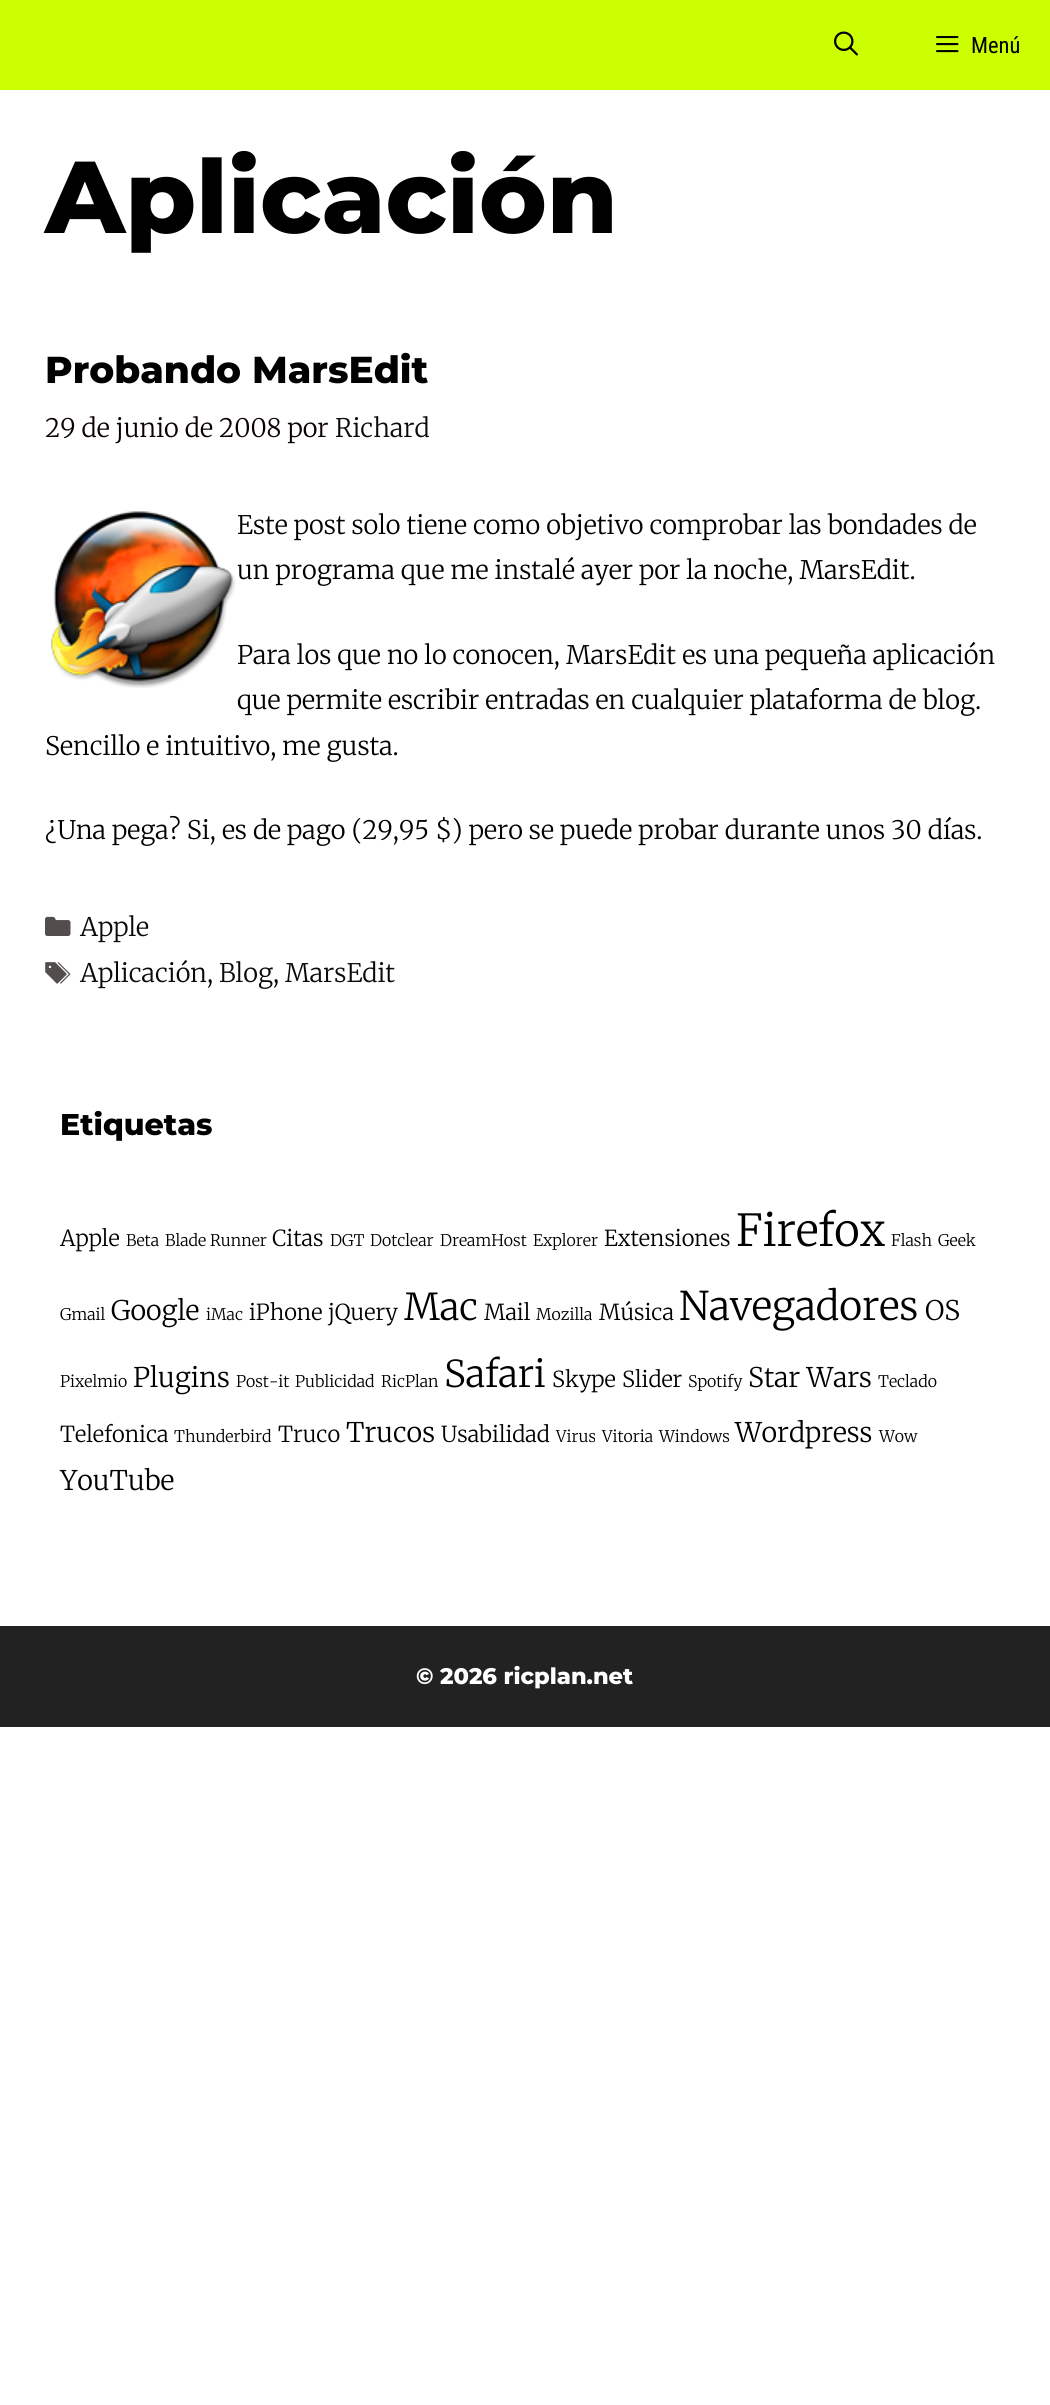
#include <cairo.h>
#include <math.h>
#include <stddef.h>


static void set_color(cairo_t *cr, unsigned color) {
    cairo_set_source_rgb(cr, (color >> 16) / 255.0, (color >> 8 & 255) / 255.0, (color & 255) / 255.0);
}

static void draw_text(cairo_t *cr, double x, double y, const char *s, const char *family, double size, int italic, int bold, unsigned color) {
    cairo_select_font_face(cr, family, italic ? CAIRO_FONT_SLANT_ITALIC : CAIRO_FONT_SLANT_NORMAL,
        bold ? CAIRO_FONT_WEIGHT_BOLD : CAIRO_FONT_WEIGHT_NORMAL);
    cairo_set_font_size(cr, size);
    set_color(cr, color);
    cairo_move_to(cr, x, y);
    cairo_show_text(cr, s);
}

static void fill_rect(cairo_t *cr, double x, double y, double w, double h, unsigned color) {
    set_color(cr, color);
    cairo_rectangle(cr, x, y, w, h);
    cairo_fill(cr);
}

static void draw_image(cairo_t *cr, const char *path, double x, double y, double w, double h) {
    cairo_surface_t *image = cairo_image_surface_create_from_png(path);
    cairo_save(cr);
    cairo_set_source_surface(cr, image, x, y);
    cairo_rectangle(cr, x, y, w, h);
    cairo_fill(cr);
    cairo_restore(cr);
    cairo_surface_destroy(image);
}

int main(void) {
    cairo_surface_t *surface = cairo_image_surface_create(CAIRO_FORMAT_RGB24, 1050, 2405);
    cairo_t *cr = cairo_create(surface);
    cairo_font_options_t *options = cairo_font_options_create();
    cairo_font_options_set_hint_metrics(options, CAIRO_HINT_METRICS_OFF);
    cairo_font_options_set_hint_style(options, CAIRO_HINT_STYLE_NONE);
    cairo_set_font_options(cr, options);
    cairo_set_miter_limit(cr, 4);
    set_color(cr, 0xFFFFFF);
    cairo_paint(cr);
    fill_rect(cr, 0, 0, 1050, 90, 0xCCFF00);
    draw_image(cr, "assets/img1.png", 834, 31, 24, 25);
    draw_image(cr, "assets/img2.png", 936, 36, 23, 17);
    draw_text(cr, 971, 53, "Menú", "Roboto Condensed", 22.5, 0, 0, 0x000000);
    draw_text(cr, 45, 233, "Aplicación", "Montserrat ExtraBold", 102, 0, 0, 0x000000);
    draw_text(cr, 45, 383, "Probando MarsEdit", "Montserrat ExtraBold", 37.5, 0, 0, 0x000000);
    draw_text(cr, 45, 437, "29 de junio de 2008 por", "Merriweather Light", 25.5, 0, 0, 0x0A0000);
    draw_text(cr, 335, 437, "Richard", "Merriweather Light", 25.5, 0, 0, 0x0A0A0A);
    draw_image(cr, "assets/img3.png", 50, 511, 186, 177);
    draw_text(cr, 237, 534, "Este post solo tiene como objetivo comprobar las bondades de", "Merriweather Light", 25.5, 0, 0, 0x000000);
    draw_text(cr, 237, 579, "un programa que me instalé ayer por la noche, MarsEdit.", "Merriweather Light", 25.5, 0, 0, 0x000000);
    draw_text(cr, 237, 664, "Para los que no lo conocen, MarsEdit es una pequeña aplicación", "Merriweather Light", 25.5, 0, 0, 0x000000);
    draw_text(cr, 237, 709, "que permite escribir entradas en cualquier plataforma de blog.", "Merriweather Light", 25.5, 0, 0, 0x000000);
    draw_text(cr, 45, 755, "Sencillo e intuitivo, me gusta.", "Merriweather Light", 25.5, 0, 0, 0x000000);
    draw_text(cr, 45, 839, "¿Una pega? Si, es de pago (29,95 $) pero se puede probar durante unos 30 días.", "Merriweather Light", 25.5, 0, 0, 0x000000);
    draw_image(cr, "assets/img4.png", 45, 916, 26, 20);
    draw_text(cr, 80, 936, "Apple", "Merriweather Light", 25.5, 0, 0, 0x0A0A0A);
    draw_image(cr, "assets/img5.png", 45, 962, 26, 22);
    draw_text(cr, 80, 982, "Aplicación", "Merriweather Light", 25.5, 0, 0, 0x0A0A0A);
    draw_text(cr, 207, 982, ",", "Merriweather Light", 25.5, 0, 0, 0x0A0000);
    draw_text(cr, 219, 982, "Blog", "Merriweather Light", 25.5, 0, 0, 0x0A0A0A);
    draw_text(cr, 273, 982, ",", "Merriweather Light", 25.5, 0, 0, 0x0A0000);
    draw_text(cr, 285, 982, "MarsEdit", "Merriweather Light", 25.5, 0, 0, 0x0A0A0A);
    draw_text(cr, 60, 1135, "Etiquetas", "Montserrat ExtraBold", 30, 0, 0, 0x000000);
    draw_text(cr, 60, 1246, "Apple", "Merriweather Light", 22, 0, 0, 0x000000);
    draw_text(cr, 126, 1246, "Beta", "Merriweather Light", 16, 0, 0, 0x000000);
    draw_text(cr, 165, 1246, "Blade Runner", "Merriweather Light", 16, 0, 0, 0x000000);
    draw_text(cr, 272, 1246, "Citas", "Merriweather Light", 22, 0, 0, 0x000000);
    draw_text(cr, 330, 1246, "DGT", "Merriweather Light", 16, 0, 0, 0x000000);
    draw_text(cr, 370, 1246, "Dotclear", "Merriweather Light", 16, 0, 0, 0x000000);
    draw_text(cr, 440, 1246, "DreamHost", "Merriweather Light", 16, 0, 0, 0x000000);
    draw_text(cr, 533, 1246, "Explorer", "Merriweather Light", 16, 0, 0, 0x000000);
    draw_text(cr, 604, 1246, "Extensiones", "Merriweather Light", 22, 0, 0, 0x000000);
    draw_text(cr, 736, 1246, "Firefox", "Merriweather Light", 44, 0, 0, 0x000000);
    draw_text(cr, 891, 1246, "Flash", "Merriweather Light", 16, 0, 0, 0x000000);
    draw_text(cr, 938, 1246, "Geek", "Merriweather Light", 16, 0, 0, 0x000000);
    draw_text(cr, 60, 1320, "Gmail", "Merriweather Light", 16, 0, 0, 0x000000);
    draw_text(cr, 111, 1320, "Google", "Merriweather Light", 27, 0, 0, 0x000000);
    draw_text(cr, 206, 1320, "iMac", "Merriweather Light", 16, 0, 0, 0x000000);
    draw_text(cr, 249, 1320, "iPhone", "Merriweather Light", 22, 0, 0, 0x000000);
    draw_text(cr, 328, 1320, "jQuery", "Merriweather Light", 22, 0, 0, 0x000000);
    draw_text(cr, 404, 1320, "Mac", "Merriweather Light", 37, 0, 0, 0x000000);
    draw_text(cr, 484, 1320, "Mail", "Merriweather Light", 22, 0, 0, 0x000000);
    draw_text(cr, 536, 1320, "Mozilla", "Merriweather Light", 16, 0, 0, 0x000000);
    draw_text(cr, 599, 1320, "Música", "Merriweather Light", 22, 0, 0, 0x000000);
    draw_text(cr, 679, 1320, "Navegadores", "Merriweather Light", 39.5, 0, 0, 0x000000);
    draw_text(cr, 925, 1320, "OS", "Merriweather Light", 27, 0, 0, 0x000000);
    draw_text(cr, 60, 1387, "Pixelmio", "Merriweather Light", 16, 0, 0, 0x000000);
    draw_text(cr, 133, 1387, "Plugins", "Merriweather Light", 27, 0, 0, 0x000000);
    draw_text(cr, 236, 1387, "Post-it", "Merriweather Light", 16, 0, 0, 0x000000);
    draw_text(cr, 295, 1387, "Publicidad", "Merriweather Light", 16, 0, 0, 0x000000);
    draw_text(cr, 381, 1387, "RicPlan", "Merriweather Light", 16, 0, 0, 0x000000);
    draw_text(cr, 444, 1387, "Safari", "Merriweather Light", 37, 0, 0, 0x000000);
    draw_text(cr, 552, 1387, "Skype", "Merriweather Light", 22, 0, 0, 0x000000);
    draw_text(cr, 622, 1387, "Slider", "Merriweather Light", 22, 0, 0, 0x000000);
    draw_text(cr, 688, 1387, "Spotify", "Merriweather Light", 16, 0, 0, 0x000000);
    draw_text(cr, 748, 1387, "Star Wars", "Merriweather Light", 27, 0, 0, 0x000000);
    draw_text(cr, 878, 1387, "Teclado", "Merriweather Light", 16, 0, 0, 0x000000);
    draw_text(cr, 60, 1442, "Telefonica", "Merriweather Light", 22, 0, 0, 0x000000);
    draw_text(cr, 174, 1442, "Thunderbird", "Merriweather Light", 16, 0, 0, 0x000000);
    draw_text(cr, 278, 1442, "Truco", "Merriweather Light", 22, 0, 0, 0x000000);
    draw_text(cr, 346, 1442, "Trucos", "Merriweather Light", 27, 0, 0, 0x000000);
    draw_text(cr, 441, 1442, "Usabilidad", "Merriweather Light", 22, 0, 0, 0x000000);
    draw_text(cr, 556, 1442, "Virus", "Merriweather Light", 16, 0, 0, 0x000000);
    draw_text(cr, 602, 1442, "Vitoria", "Merriweather Light", 16, 0, 0, 0x000000);
    draw_text(cr, 659, 1442, "Windows", "Merriweather Light", 16, 0, 0, 0x000000);
    draw_text(cr, 735, 1442, "Wordpress", "Merriweather Light", 27, 0, 0, 0x000000);
    draw_text(cr, 879, 1442, "Wow", "Merriweather Light", 16, 0, 0, 0x000000);
    draw_text(cr, 60, 1490, "YouTube", "Merriweather Light", 27, 0, 0, 0x000000);
    fill_rect(cr, 0, 1626, 1050, 101, 0x222222);
    draw_text(cr, 416, 1684, "© 2026 ricplan.net", "Montserrat ExtraBold", 22.5, 0, 0, 0xFFFFFF);
    cairo_surface_write_to_png(surface, "output.png");
    cairo_font_options_destroy(options);
    cairo_destroy(cr);
    cairo_surface_destroy(surface);
    return 0;
}
